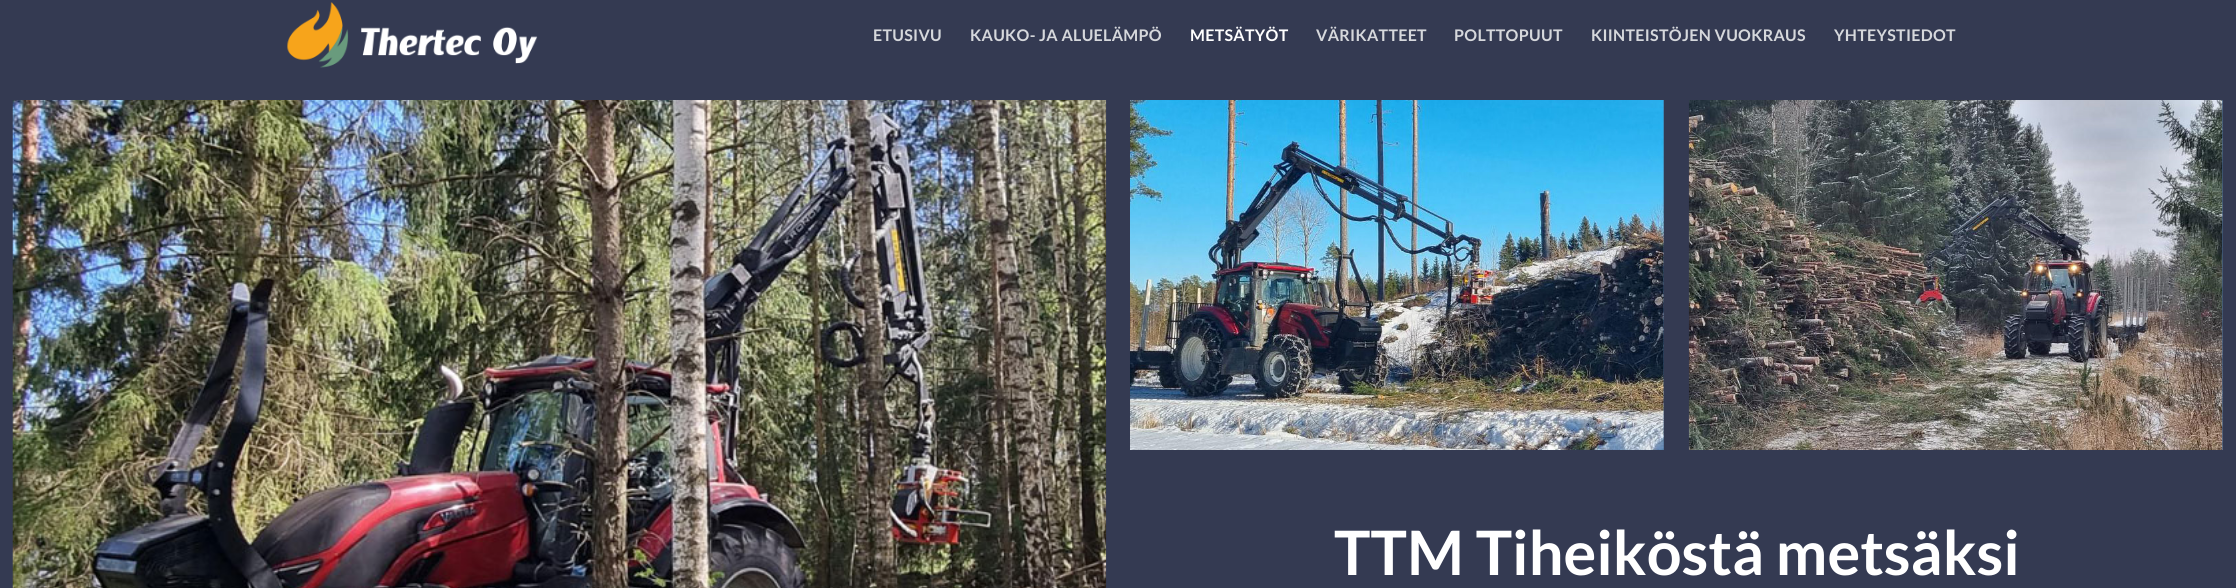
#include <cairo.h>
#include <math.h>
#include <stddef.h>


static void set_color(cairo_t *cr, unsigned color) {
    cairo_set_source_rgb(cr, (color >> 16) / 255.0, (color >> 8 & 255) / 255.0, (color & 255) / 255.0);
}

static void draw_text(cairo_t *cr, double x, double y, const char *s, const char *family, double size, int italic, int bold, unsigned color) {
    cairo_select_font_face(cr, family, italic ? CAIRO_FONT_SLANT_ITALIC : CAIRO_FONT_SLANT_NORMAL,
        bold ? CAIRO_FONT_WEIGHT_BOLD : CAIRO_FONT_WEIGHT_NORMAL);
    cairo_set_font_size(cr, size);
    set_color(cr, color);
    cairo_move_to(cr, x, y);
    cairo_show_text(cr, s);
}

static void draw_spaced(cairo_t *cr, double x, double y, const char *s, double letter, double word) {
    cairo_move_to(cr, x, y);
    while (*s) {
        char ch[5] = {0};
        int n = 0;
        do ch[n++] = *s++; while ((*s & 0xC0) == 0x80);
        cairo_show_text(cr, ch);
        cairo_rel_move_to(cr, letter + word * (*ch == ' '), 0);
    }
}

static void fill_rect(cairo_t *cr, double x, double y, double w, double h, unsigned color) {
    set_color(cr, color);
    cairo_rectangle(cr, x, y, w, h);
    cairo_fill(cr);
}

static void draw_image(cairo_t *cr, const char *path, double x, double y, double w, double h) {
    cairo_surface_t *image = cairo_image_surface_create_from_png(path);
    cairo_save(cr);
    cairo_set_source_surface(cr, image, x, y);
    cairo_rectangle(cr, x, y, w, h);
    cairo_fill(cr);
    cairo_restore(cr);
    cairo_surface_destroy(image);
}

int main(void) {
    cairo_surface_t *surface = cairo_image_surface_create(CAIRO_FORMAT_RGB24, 2236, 588);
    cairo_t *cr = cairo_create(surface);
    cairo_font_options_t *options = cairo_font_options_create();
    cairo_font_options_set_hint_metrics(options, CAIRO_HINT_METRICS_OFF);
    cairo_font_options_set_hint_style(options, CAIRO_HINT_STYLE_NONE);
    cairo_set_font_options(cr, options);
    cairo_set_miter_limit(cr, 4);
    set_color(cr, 0x343A52);
    cairo_paint(cr);
    draw_image(cr, "assets/img1.png", 287, 2, 251, 66);
    cairo_select_font_face(cr, "Lato", CAIRO_FONT_SLANT_NORMAL, CAIRO_FONT_WEIGHT_BOLD);
    cairo_set_font_size(cr, 16);
    set_color(cr, 0xD6D8DC);
    draw_spaced(cr, 873, 41, "ETUSIVU", 0.3, 0);
    draw_spaced(cr, 970, 41, "KAUKO- JA ALUELÄMPÖ", 0.3, 0);
    set_color(cr, 0xFFFFFF);
    draw_spaced(cr, 1190, 41, "METSÄTYÖT", 0.3, 0);
    set_color(cr, 0xD6D8DC);
    draw_spaced(cr, 1316, 41, "VÄRIKATTEET", 0.3, 0);
    draw_spaced(cr, 1454, 41, "POLTTOPUUT", 0.3, 0);
    draw_spaced(cr, 1591, 41, "KIINTEISTÖJEN VUOKRAUS", 0.3, 0);
    draw_spaced(cr, 1834, 41, "YHTEYSTIEDOT", 0.3, 0);
    draw_image(cr, "assets/img2.png", 12, 100, 1095, 488);
    fill_rect(cr, 1663, 100, 1, 350, 0x446084);
    draw_image(cr, "assets/img3.png", 1130, 100, 534, 350);
    fill_rect(cr, 2222, 100, 1, 350, 0x446084);
    draw_image(cr, "assets/img4.png", 1688, 100, 535, 350);
    draw_text(cr, 1334, 575, "TTM Tiheiköstä metsäksi", "Lato", 61.25, 0, 1, 0xFFFFFF);
    cairo_surface_write_to_png(surface, "output.png");
    cairo_font_options_destroy(options);
    cairo_destroy(cr);
    cairo_surface_destroy(surface);
    return 0;
}
